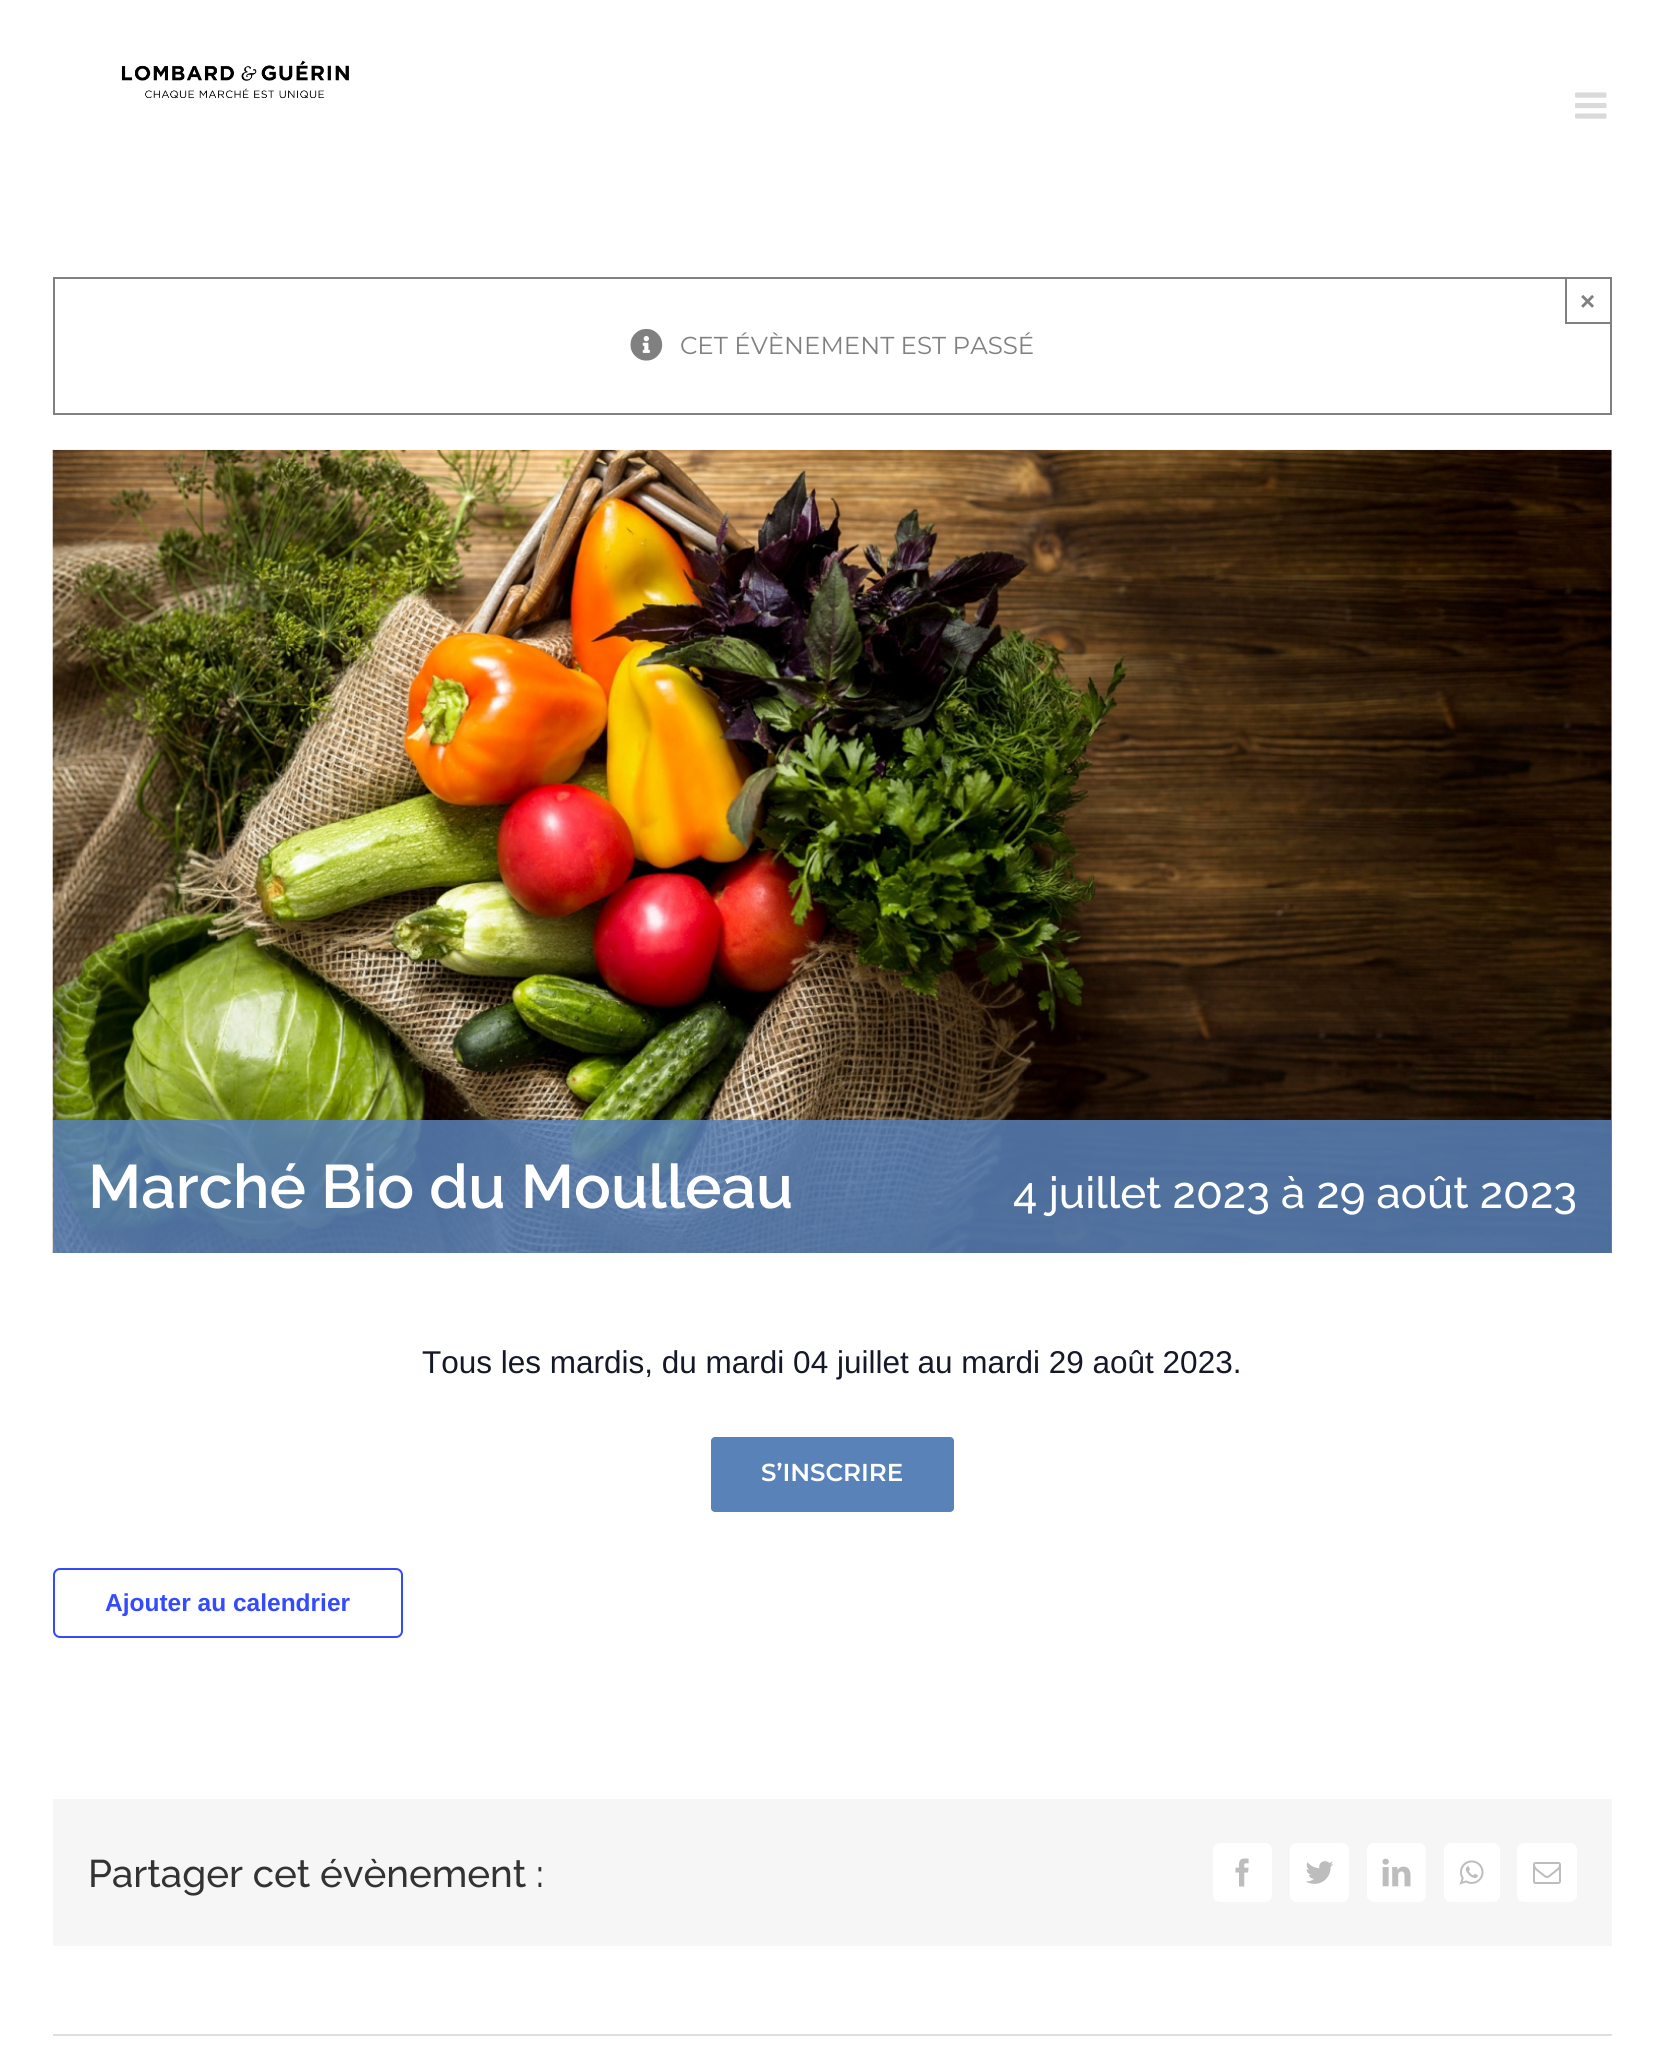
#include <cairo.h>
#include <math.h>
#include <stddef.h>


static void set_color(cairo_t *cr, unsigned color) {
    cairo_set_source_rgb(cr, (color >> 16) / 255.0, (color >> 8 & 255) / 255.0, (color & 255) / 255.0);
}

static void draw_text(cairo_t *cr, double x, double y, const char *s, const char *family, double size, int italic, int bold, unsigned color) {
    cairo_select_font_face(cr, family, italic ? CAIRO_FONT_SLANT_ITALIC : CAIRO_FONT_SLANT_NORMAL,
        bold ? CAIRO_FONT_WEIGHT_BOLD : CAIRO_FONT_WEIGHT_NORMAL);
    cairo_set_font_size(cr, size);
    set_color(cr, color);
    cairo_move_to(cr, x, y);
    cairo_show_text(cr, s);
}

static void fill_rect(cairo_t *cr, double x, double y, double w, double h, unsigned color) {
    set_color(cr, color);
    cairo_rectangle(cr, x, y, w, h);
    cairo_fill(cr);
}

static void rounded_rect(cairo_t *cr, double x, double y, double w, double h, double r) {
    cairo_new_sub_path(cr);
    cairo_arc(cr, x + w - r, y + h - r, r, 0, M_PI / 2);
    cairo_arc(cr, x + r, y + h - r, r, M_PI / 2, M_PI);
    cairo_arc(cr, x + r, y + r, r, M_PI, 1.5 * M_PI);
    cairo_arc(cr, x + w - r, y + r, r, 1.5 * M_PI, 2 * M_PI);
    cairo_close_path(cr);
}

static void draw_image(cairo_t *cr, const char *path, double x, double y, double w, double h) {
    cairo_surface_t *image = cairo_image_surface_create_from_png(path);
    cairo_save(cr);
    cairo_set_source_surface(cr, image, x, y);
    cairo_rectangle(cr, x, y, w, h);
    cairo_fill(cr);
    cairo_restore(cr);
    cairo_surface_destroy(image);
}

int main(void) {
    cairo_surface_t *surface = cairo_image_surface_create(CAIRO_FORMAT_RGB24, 1663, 2049);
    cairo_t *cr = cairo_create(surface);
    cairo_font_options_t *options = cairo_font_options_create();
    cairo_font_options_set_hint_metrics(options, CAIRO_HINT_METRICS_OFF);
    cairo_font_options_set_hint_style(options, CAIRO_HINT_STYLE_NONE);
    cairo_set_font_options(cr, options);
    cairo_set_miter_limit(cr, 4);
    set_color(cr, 0xFFFFFF);
    cairo_paint(cr);
    draw_image(cr, "assets/img1.png", 121, 60, 228, 38);
    draw_image(cr, "assets/img2.png", 1575, 92, 32, 27);
    cairo_rectangle(cr, 54, 278, 1557, 136);
    set_color(cr, 0x808080);
    cairo_stroke(cr);
    cairo_rectangle(cr, 1566, 278, 45, 45);
    cairo_stroke(cr);
    draw_text(cr, 1580, 310, "×", "Liberation Sans", 26, 0, 1, 0x808080);
    draw_image(cr, "assets/img3.png", 630, 328, 33, 33);
    draw_text(cr, 680, 354, "CET ÉVÈNEMENT EST PASSÉ", "Montserrat", 24.5, 0, 0, 0x808080);
    draw_image(cr, "assets/img4.png", 52, 449, 1560, 804);
    cairo_set_source_rgba(cr, 0.345, 0.51, 0.722, 0.85);
    cairo_rectangle(cr, 53, 1120, 1559, 133);
    cairo_fill(cr);
    draw_text(cr, 88, 1208, "Marché Bio du Moulleau", "Raleway SemiBold", 61.25, 0, 0, 0xFFFFFF);
    draw_text(cr, 1013, 1208, "4 juillet 2023 à 29 août 2023", "Raleway Medium", 43.75, 0, 0, 0xFFFFFF);
    draw_text(cr, 422, 1373, "Tous les mardis, du mardi 04 juillet au mardi 29 août 2023.", "Liberation Sans", 31.5, 0, 0, 0x141827);
    set_color(cr, 0x5882B8);
    rounded_rect(cr, 711, 1437, 243, 75, 4);
    cairo_fill(cr);
    draw_text(cr, 761, 1481, "S’INSCRIRE", "Montserrat SemiBold", 24.5, 0, 0, 0xFFFFFF);
    rounded_rect(cr, 54, 1569, 348, 68, 6);
    set_color(cr, 0x334AFF);
    cairo_stroke(cr);
    draw_text(cr, 105, 1611, "Ajouter au calendrier", "Liberation Sans", 24.5, 0, 1, 0x334AFF);
    fill_rect(cr, 53, 1799, 1559, 147, 0xF6F6F6);
    draw_text(cr, 88, 1887, "Partager cet évènement :", "Raleway Medium", 38.5, 0, 0, 0x333333);
    set_color(cr, 0xFFFFFF);
    rounded_rect(cr, 1213, 1843, 59, 59, 7);
    cairo_fill(cr);
    draw_image(cr, "assets/img5.png", 1235, 1858, 14, 29);
    rounded_rect(cr, 1290, 1843, 59, 59, 7);
    cairo_fill(cr);
    draw_image(cr, "assets/img6.png", 1306, 1861, 28, 23);
    rounded_rect(cr, 1367, 1843, 59, 59, 7);
    cairo_fill(cr);
    draw_image(cr, "assets/img7.png", 1382, 1858, 29, 29);
    rounded_rect(cr, 1444, 1843, 56, 59, 7);
    cairo_fill(cr);
    draw_image(cr, "assets/img8.png", 1459, 1860, 25, 25);
    rounded_rect(cr, 1517, 1843, 60, 59, 7);
    cairo_fill(cr);
    draw_image(cr, "assets/img9.png", 1533, 1862, 28, 22);
    fill_rect(cr, 53, 2034, 1559, 2, 0xE0DEDE);
    cairo_surface_write_to_png(surface, "output.png");
    cairo_font_options_destroy(options);
    cairo_destroy(cr);
    cairo_surface_destroy(surface);
    return 0;
}
